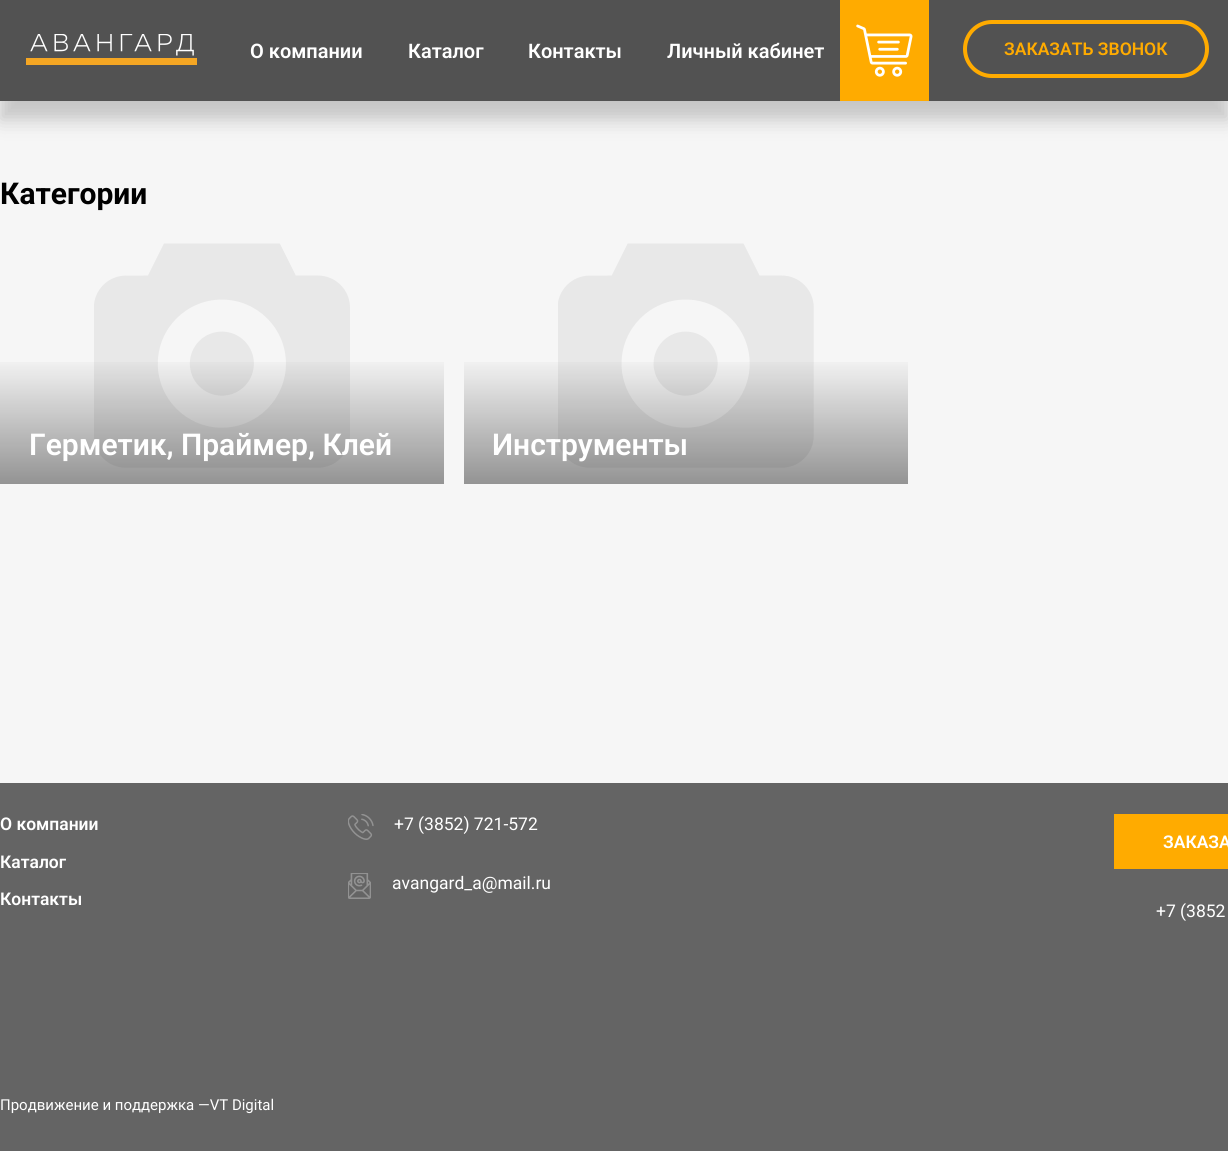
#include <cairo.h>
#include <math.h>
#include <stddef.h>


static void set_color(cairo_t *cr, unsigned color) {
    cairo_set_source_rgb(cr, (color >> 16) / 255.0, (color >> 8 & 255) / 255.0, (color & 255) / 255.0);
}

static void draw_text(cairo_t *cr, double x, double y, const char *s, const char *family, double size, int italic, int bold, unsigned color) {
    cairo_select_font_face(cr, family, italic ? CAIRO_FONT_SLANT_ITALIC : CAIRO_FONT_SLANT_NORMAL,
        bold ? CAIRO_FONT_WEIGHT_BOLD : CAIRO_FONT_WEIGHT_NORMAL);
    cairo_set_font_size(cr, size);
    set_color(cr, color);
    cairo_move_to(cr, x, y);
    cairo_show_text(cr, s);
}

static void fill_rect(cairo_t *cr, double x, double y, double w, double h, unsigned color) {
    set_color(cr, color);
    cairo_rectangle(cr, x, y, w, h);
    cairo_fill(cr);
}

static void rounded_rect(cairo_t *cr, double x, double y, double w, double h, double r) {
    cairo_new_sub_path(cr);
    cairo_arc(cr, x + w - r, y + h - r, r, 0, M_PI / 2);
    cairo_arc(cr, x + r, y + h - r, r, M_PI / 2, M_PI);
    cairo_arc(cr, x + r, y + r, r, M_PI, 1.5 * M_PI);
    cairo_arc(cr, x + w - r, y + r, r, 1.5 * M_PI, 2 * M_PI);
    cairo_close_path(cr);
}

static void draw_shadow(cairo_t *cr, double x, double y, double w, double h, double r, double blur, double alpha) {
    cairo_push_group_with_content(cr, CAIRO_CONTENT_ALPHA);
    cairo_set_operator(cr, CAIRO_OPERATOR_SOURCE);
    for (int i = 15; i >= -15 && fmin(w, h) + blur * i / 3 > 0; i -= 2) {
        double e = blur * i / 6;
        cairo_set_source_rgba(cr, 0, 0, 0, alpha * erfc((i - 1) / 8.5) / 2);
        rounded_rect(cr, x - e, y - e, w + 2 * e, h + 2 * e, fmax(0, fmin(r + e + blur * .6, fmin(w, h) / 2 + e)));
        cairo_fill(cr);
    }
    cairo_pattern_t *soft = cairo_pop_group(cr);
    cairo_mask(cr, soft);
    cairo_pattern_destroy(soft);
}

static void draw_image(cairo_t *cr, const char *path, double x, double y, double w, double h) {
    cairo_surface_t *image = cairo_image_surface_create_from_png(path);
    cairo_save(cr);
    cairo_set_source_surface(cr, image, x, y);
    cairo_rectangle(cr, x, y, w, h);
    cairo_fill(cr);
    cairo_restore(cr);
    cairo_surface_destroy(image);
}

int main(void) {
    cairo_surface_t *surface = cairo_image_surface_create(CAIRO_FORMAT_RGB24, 1228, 1151);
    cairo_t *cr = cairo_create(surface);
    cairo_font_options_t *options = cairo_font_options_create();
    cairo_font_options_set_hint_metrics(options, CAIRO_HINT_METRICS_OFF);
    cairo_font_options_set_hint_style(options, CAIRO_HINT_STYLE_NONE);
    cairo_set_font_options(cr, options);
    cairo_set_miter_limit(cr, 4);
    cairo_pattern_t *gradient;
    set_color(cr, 0xF6F6F6);
    cairo_paint(cr);
    set_color(cr, 0x000000);
    draw_shadow(cr, 0, 19, 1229, 101, 0, 9.5, 0.2);
    fill_rect(cr, 0, 0, 1228, 101, 0x525252);
    draw_image(cr, "assets/img1.png", 26, 34, 171, 31);
    draw_text(cr, 250, 58, "О компании", "Roboto SemiBold", 20, 0, 0, 0xFFFFFF);
    draw_text(cr, 408, 58, "Каталог", "Roboto SemiBold", 20, 0, 0, 0xFFFFFF);
    draw_text(cr, 528, 58, "Контакты", "Roboto SemiBold", 20, 0, 0, 0xFFFFFF);
    draw_text(cr, 667, 58, "Личный кабинет", "Roboto SemiBold", 20, 0, 0, 0xFFFFFF);
    fill_rect(cr, 840, 0, 89, 101, 0xFFAB00);
    draw_image(cr, "assets/img2.png", 856, 24, 57, 53);
    rounded_rect(cr, 965, 22, 242, 54, 27);
    cairo_set_line_width(cr, 4);
    cairo_stroke(cr);
    draw_text(cr, 1004, 55, "ЗАКАЗАТЬ ЗВОНОК", "Roboto SemiBold", 17.5, 0, 0, 0xFFAB00);
    draw_text(cr, 0, 204, "Категории", "Roboto", 30, 0, 1, 0x000000);
    draw_image(cr, "assets/img3.png", 94, 243, 256, 225);
    gradient = cairo_pattern_create_linear(222, 227, 222, 484);
    cairo_pattern_add_color_stop_rgba(gradient, 0, 0, 0, 0, 0);
    cairo_pattern_add_color_stop_rgba(gradient, 0.5, 0, 0, 0, 0);
    cairo_pattern_add_color_stop_rgba(gradient, 1, 0, 0, 0, 0.4);
    cairo_set_source(cr, gradient);
    cairo_pattern_destroy(gradient);
    cairo_rectangle(cr, 0, 362, 444, 122);
    cairo_fill(cr);
    draw_text(cr, 29, 455, "Герметик, Праймер, Клей", "Roboto SemiBold", 30, 0, 0, 0xFFFFFF);
    draw_image(cr, "assets/img4.png", 558, 243, 256, 225);
    gradient = cairo_pattern_create_linear(686, 227, 686, 484);
    cairo_pattern_add_color_stop_rgba(gradient, 0, 0, 0, 0, 0);
    cairo_pattern_add_color_stop_rgba(gradient, 0.5, 0, 0, 0, 0);
    cairo_pattern_add_color_stop_rgba(gradient, 1, 0, 0, 0, 0.4);
    cairo_set_source(cr, gradient);
    cairo_pattern_destroy(gradient);
    cairo_rectangle(cr, 464, 362, 444, 122);
    cairo_fill(cr);
    draw_text(cr, 492, 455, "Инструменты", "Roboto SemiBold", 30, 0, 0, 0xFFFFFF);
    fill_rect(cr, 0, 783, 1228, 368, 0x646464);
    draw_text(cr, 0, 830, "О компании", "Roboto SemiBold", 17.5, 0, 0, 0xFFFFFF);
    draw_text(cr, 0, 868, "Каталог", "Roboto SemiBold", 17.5, 0, 0, 0xFFFFFF);
    draw_text(cr, 0, 905, "Контакты", "Roboto SemiBold", 17.5, 0, 0, 0xFFFFFF);
    draw_image(cr, "assets/img5.png", 348, 814, 26, 26);
    draw_text(cr, 394, 830, "+7 (3852) 721-572", "Roboto", 17.5, 0, 0, 0xFFFFFF);
    draw_image(cr, "assets/img6.png", 348, 873, 23, 26);
    draw_text(cr, 392, 889, "avangard_a@mail.ru", "Roboto", 17.5, 0, 0, 0xFFFFFF);
    fill_rect(cr, 1114, 814, 114, 55, 0xFFAB00);
    draw_text(cr, 1163, 848, "ЗАКАЗА", "Roboto SemiBold", 17.5, 0, 0, 0xFFFFFF);
    draw_text(cr, 1156, 917, "+7 (3852", "Roboto", 17.5, 0, 0, 0xFFFFFF);
    draw_text(cr, 0, 1110, "Продвижение и поддержка —VT Digital", "Roboto", 15, 0, 0, 0xFFFFFF);
    cairo_surface_write_to_png(surface, "output.png");
    cairo_font_options_destroy(options);
    cairo_destroy(cr);
    cairo_surface_destroy(surface);
    return 0;
}
